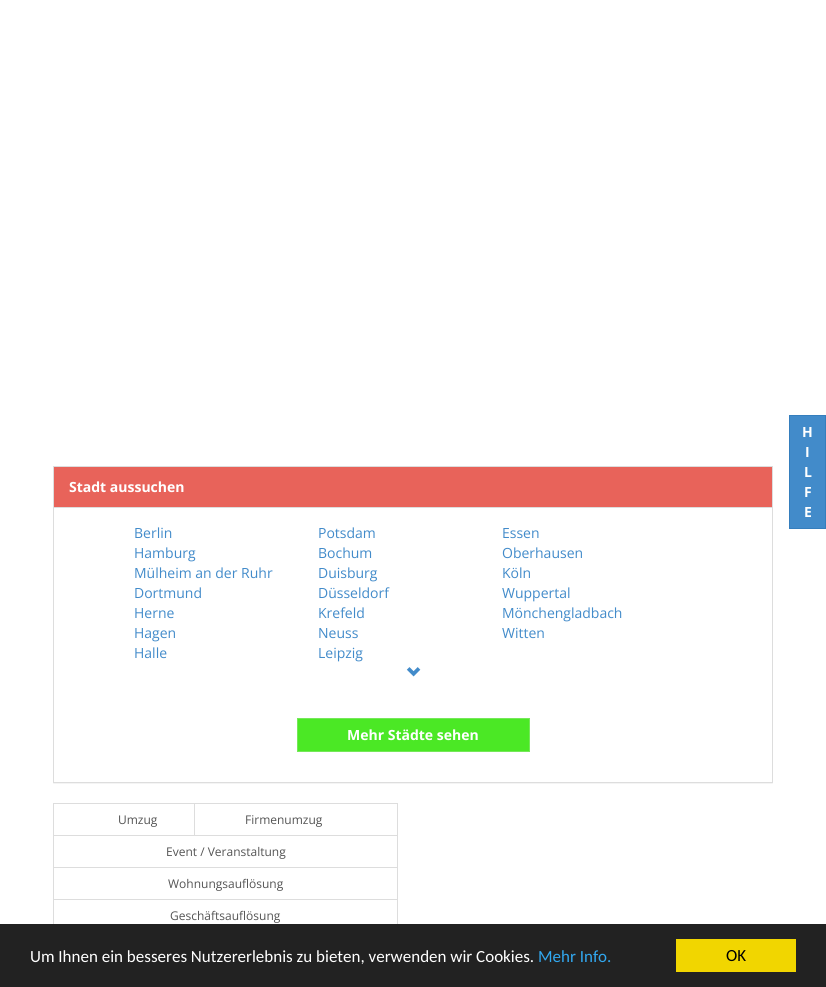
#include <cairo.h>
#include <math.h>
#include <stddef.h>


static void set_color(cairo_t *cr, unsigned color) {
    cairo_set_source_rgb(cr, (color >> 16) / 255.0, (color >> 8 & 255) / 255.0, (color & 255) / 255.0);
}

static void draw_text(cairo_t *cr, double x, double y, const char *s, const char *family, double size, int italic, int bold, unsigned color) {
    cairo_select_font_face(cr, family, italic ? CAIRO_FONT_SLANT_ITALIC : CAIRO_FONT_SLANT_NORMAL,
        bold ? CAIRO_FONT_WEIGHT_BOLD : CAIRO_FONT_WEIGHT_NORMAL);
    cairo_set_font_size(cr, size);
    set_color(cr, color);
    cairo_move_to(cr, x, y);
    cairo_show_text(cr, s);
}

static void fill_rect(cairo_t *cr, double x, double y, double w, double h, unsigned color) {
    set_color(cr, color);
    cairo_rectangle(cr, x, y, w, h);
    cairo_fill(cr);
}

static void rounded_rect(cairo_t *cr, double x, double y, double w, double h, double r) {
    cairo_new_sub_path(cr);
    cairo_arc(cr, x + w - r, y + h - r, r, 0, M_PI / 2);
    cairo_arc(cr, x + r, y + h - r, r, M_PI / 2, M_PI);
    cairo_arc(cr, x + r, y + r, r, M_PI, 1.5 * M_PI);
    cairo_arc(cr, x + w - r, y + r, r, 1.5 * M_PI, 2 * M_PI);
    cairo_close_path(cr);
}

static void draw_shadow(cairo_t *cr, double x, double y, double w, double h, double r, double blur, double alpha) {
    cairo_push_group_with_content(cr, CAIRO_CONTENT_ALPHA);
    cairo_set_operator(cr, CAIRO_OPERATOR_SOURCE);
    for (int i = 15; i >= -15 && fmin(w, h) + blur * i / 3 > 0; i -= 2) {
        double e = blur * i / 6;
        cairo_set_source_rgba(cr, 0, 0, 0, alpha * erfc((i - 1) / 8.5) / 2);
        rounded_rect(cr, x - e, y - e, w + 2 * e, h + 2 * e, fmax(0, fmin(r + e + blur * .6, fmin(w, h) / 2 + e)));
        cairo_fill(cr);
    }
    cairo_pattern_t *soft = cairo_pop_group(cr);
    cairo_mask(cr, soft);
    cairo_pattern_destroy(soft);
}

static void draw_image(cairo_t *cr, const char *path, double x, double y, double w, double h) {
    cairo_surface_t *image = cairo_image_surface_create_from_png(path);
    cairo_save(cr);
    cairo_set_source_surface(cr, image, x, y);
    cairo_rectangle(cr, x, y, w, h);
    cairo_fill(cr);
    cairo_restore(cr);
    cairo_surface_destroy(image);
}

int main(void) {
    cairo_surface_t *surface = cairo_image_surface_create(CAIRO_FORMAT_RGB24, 826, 987);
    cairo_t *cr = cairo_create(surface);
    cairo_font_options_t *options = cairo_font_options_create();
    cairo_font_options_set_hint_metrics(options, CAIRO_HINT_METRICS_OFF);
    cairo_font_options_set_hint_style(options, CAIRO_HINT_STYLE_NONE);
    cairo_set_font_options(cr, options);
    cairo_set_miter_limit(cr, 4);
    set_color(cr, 0xFFFFFF);
    cairo_paint(cr);
    set_color(cr, 0x428BCA);
    cairo_rectangle(cr, 789.5, 415.5, 36, 113);
    cairo_fill_preserve(cr);
    set_color(cr, 0x357EBD);
    cairo_set_line_width(cr, 1);
    cairo_stroke(cr);
    draw_text(cr, 802, 437, "H", "Open Sans", 14, 0, 1, 0xFFFFFF);
    draw_text(cr, 805, 457, "I", "Open Sans", 14, 0, 1, 0xFFFFFF);
    draw_text(cr, 804, 477, "L", "Open Sans", 14, 0, 1, 0xFFFFFF);
    draw_text(cr, 804, 497, "F", "Open Sans", 14, 0, 1, 0xFFFFFF);
    draw_text(cr, 804, 517, "E", "Open Sans", 14, 0, 1, 0xFFFFFF);
    cairo_save(cr);
    cairo_rectangle(cr, 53, 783, 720, 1);
    cairo_clip(cr);
    set_color(cr, 0x000000);
    draw_shadow(cr, 53, 467, 720, 317, 0, 0.5, 0.05);
    cairo_restore(cr);
    cairo_rectangle(cr, 53.5, 466.5, 719, 316);
    set_color(cr, 0xDDDDDD);
    cairo_stroke(cr);
    fill_rect(cr, 54, 467, 718, 40, 0xE8635A);
    fill_rect(cr, 54, 507, 718, 1, 0xDDDDDD);
    draw_text(cr, 69, 492, "Stadt aussuchen", "Open Sans", 14, 0, 1, 0xFFFFFF);
    draw_text(cr, 134, 538, "Berlin", "Open Sans", 14, 0, 0, 0x428BCA);
    draw_text(cr, 318, 538, "Potsdam", "Open Sans", 14, 0, 0, 0x428BCA);
    draw_text(cr, 502, 538, "Essen", "Open Sans", 14, 0, 0, 0x428BCA);
    draw_text(cr, 134, 558, "Hamburg", "Open Sans", 14, 0, 0, 0x428BCA);
    draw_text(cr, 318, 558, "Bochum", "Open Sans", 14, 0, 0, 0x428BCA);
    draw_text(cr, 502, 558, "Oberhausen", "Open Sans", 14, 0, 0, 0x428BCA);
    draw_text(cr, 134, 578, "Mülheim an der Ruhr", "Open Sans", 14, 0, 0, 0x428BCA);
    draw_text(cr, 318, 578, "Duisburg", "Open Sans", 14, 0, 0, 0x428BCA);
    draw_text(cr, 502, 578, "Köln", "Open Sans", 14, 0, 0, 0x428BCA);
    draw_text(cr, 134, 598, "Dortmund", "Open Sans", 14, 0, 0, 0x428BCA);
    draw_text(cr, 318, 598, "Düsseldorf", "Open Sans", 14, 0, 0, 0x428BCA);
    draw_text(cr, 502, 598, "Wuppertal", "Open Sans", 14, 0, 0, 0x428BCA);
    draw_text(cr, 134, 618, "Herne", "Open Sans", 14, 0, 0, 0x428BCA);
    draw_text(cr, 318, 618, "Krefeld", "Open Sans", 14, 0, 0, 0x428BCA);
    draw_text(cr, 502, 618, "Mönchengladbach", "Open Sans", 14, 0, 0, 0x428BCA);
    draw_text(cr, 134, 638, "Hagen", "Open Sans", 14, 0, 0, 0x428BCA);
    draw_text(cr, 318, 638, "Neuss", "Open Sans", 14, 0, 0, 0x428BCA);
    draw_text(cr, 502, 638, "Witten", "Open Sans", 14, 0, 0, 0x428BCA);
    draw_text(cr, 134, 658, "Halle", "Open Sans", 14, 0, 0, 0x428BCA);
    draw_text(cr, 318, 658, "Leipzig", "Open Sans", 14, 0, 0, 0x428BCA);
    draw_image(cr, "assets/img1.png", 406, 667, 15, 10);
    set_color(cr, 0x4BE825);
    cairo_rectangle(cr, 297.5, 718.5, 232, 33);
    cairo_fill_preserve(cr);
    set_color(cr, 0x75E859);
    cairo_stroke(cr);
    draw_text(cr, 347, 740, "Mehr Städte sehen", "Open Sans", 14, 0, 1, 0xFFFFFF);
    cairo_rectangle(cr, 53.5, 803.5, 344, 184);
    set_color(cr, 0xDDDDDD);
    cairo_stroke(cr);
    fill_rect(cr, 54, 835, 343, 1, 0xDDDDDD);
    fill_rect(cr, 194, 804, 1, 31, 0xDDDDDD);
    draw_text(cr, 118, 824, "Umzug", "Open Sans", 12, 0, 0, 0x545454);
    draw_text(cr, 245, 824, "Firmenumzug", "Open Sans", 12, 0, 0, 0x545454);
    fill_rect(cr, 54, 867, 343, 1, 0xDDDDDD);
    draw_text(cr, 166, 856, "Event / Veranstaltung", "Open Sans", 12, 0, 0, 0x545454);
    fill_rect(cr, 54, 899, 343, 1, 0xDDDDDD);
    draw_text(cr, 168, 888, "Wohnungsauflösung", "Open Sans", 12, 0, 0, 0x545454);
    draw_text(cr, 170, 920, "Geschäftsauflösung", "Open Sans", 12, 0, 0, 0x545454);
    fill_rect(cr, 0, 924, 826, 63, 0x222222);
    draw_text(cr, 30, 962, "Um Ihnen ein besseres Nutzererlebnis zu bieten, verwenden wir Cookies.", "Carlito", 17, 0, 0, 0xFFFFFF);
    draw_text(cr, 538, 962, "Mehr Info.", "Carlito", 17, 0, 0, 0x31A8F0);
    fill_rect(cr, 676, 939, 120, 33, 0xF1D600);
    draw_text(cr, 726, 961, "OK", "Carlito", 17, 0, 0, 0x000000);
    cairo_surface_write_to_png(surface, "output.png");
    cairo_font_options_destroy(options);
    cairo_destroy(cr);
    cairo_surface_destroy(surface);
    return 0;
}
